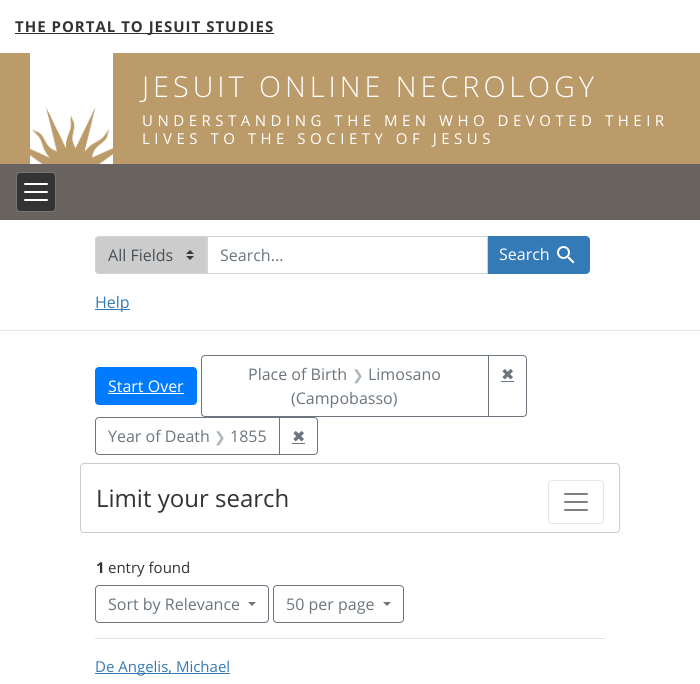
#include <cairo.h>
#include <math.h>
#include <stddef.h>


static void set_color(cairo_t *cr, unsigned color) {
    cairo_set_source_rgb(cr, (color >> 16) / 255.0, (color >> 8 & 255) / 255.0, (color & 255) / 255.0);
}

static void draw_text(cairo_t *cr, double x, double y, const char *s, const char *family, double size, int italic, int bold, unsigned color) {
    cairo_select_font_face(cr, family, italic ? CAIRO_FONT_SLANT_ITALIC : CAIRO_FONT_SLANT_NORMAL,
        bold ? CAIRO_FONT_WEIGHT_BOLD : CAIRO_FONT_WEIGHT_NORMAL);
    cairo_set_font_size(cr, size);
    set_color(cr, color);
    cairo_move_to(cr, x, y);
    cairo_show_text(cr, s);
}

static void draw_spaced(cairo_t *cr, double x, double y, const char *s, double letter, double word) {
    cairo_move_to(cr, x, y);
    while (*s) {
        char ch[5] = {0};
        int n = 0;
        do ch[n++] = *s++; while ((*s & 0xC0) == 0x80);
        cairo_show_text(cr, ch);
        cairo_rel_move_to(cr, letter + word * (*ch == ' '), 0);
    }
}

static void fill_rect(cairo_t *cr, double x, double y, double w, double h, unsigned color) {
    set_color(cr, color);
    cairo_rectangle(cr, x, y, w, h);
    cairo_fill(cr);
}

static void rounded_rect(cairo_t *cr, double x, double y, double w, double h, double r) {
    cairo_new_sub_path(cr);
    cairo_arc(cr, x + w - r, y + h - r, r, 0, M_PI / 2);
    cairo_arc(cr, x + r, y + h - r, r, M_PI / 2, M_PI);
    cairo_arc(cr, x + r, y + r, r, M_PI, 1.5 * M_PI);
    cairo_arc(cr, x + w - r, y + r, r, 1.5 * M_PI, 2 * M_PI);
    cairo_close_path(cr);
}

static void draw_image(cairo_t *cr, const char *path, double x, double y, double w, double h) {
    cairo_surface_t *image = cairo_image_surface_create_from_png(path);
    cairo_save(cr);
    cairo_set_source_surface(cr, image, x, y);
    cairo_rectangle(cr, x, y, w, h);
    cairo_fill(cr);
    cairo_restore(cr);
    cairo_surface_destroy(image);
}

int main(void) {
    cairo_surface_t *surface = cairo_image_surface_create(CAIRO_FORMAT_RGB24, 700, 684);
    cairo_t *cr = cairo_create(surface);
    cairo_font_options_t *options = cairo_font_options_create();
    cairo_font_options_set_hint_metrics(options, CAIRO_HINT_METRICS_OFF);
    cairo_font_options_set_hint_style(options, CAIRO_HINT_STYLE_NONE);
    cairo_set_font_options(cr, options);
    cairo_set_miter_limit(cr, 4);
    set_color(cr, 0xFFFFFF);
    cairo_paint(cr);
    fill_rect(cr, 15, 33, 259, 1, 0x333333);
    cairo_select_font_face(cr, "Open Sans", CAIRO_FONT_SLANT_NORMAL, CAIRO_FONT_WEIGHT_BOLD);
    cairo_set_font_size(cr, 15);
    draw_spaced(cr, 15, 32, "THE PORTAL TO JESUIT STUDIES", 1, 0);
    fill_rect(cr, 0, 53, 700, 111, 0xBC9B6A);
    draw_image(cr, "assets/img1.png", 30, 53, 83, 111);
    cairo_select_font_face(cr, "Open Sans Light", CAIRO_FONT_SLANT_NORMAL, CAIRO_FONT_WEIGHT_NORMAL);
    cairo_set_font_size(cr, 28.75);
    set_color(cr, 0xFFFFFF);
    draw_spaced(cr, 142, 97, "JESUIT ONLINE NECROLOGY", 4, 0);
    cairo_select_font_face(cr, "Open Sans", CAIRO_FONT_SLANT_NORMAL, CAIRO_FONT_WEIGHT_NORMAL);
    cairo_set_font_size(cr, 15);
    draw_spaced(cr, 142, 126, "UNDERSTANDING THE MEN WHO DEVOTED THEIR", 4.5, 0);
    draw_spaced(cr, 142, 144, "LIVES TO THE SOCIETY OF JESUS", 4.5, 0);
    fill_rect(cr, 0, 164, 700, 56, 0x69635F);
    set_color(cr, 0x333333);
    rounded_rect(cr, 16.5, 172.5, 39, 39, 3.5);
    cairo_fill_preserve(cr);
    set_color(cr, 0x777777);
    cairo_set_line_width(cr, 1);
    cairo_stroke(cr);
    draw_image(cr, "assets/img2.png", 24, 183, 24, 18);
    fill_rect(cr, 0, 330, 700, 1, 0xE7E7E7);
    set_color(cr, 0xCCCCCC);
    cairo_new_path(cr);
    cairo_move_to(cr, 99, 236);
    cairo_line_to(cr, 207, 236);
    cairo_line_to(cr, 207, 274);
    cairo_line_to(cr, 99, 274);
    cairo_curve_to(cr, 97, 274, 95, 272, 95, 270);
    cairo_line_to(cr, 95, 240);
    cairo_curve_to(cr, 95, 238, 97, 236, 99, 236);
    cairo_close_path(cr);
    cairo_fill(cr);
    draw_image(cr, "assets/img3.png", 186, 250, 8, 10);
    cairo_new_path(cr);
    cairo_move_to(cr, 99, 236.5);
    cairo_line_to(cr, 206.5, 236.5);
    cairo_line_to(cr, 206.5, 273.5);
    cairo_line_to(cr, 99, 273.5);
    cairo_curve_to(cr, 97, 273.5, 95.5, 272, 95.5, 270);
    cairo_line_to(cr, 95.5, 240);
    cairo_curve_to(cr, 95.5, 238, 97, 236.5, 99, 236.5);
    cairo_close_path(cr);
    set_color(cr, 0xCED4DA);
    cairo_stroke(cr);
    draw_text(cr, 108, 261, "All Fields", "Open Sans", 16, 0, 0, 0x495057);
    set_color(cr, 0x337AB7);
    cairo_new_path(cr);
    cairo_move_to(cr, 487, 236);
    cairo_line_to(cr, 586, 236);
    cairo_curve_to(cr, 588, 236, 590, 238, 590, 240);
    cairo_line_to(cr, 590, 270);
    cairo_curve_to(cr, 590, 272, 588, 274, 586, 274);
    cairo_line_to(cr, 487, 274);
    cairo_close_path(cr);
    cairo_fill(cr);
    cairo_rectangle(cr, 207.5, 236.5, 280, 37);
    set_color(cr, 0xCED4DA);
    cairo_stroke(cr);
    draw_text(cr, 220, 261, "Search...", "Open Sans", 16, 0, 0, 0x6C757D);
    draw_text(cr, 499, 260, "Search", "Open Sans", 16, 0, 0, 0xFFFFFF);
    draw_image(cr, "assets/img4.png", 557, 246, 18, 18);
    fill_rect(cr, 95, 309, 35, 1, 0x337AB7);
    draw_text(cr, 95, 308, "Help", "Open Sans", 16, 0, 0, 0x337AB7);
    set_color(cr, 0x007BFF);
    rounded_rect(cr, 95.5, 367.5, 101, 37, 3.5);
    cairo_fill_preserve(cr);
    cairo_stroke(cr);
    draw_text(cr, 108, 392, "Start Over", "Open Sans", 16, 0, 0, 0xFFFFFF);
    fill_rect(cr, 108, 393, 76, 1, 0xFFFFFF);
    cairo_new_path(cr);
    cairo_move_to(cr, 205, 355.5);
    cairo_line_to(cr, 488.5, 355.5);
    cairo_line_to(cr, 488.5, 416.5);
    cairo_line_to(cr, 205, 416.5);
    cairo_curve_to(cr, 203, 416.5, 201.5, 415, 201.5, 413);
    cairo_line_to(cr, 201.5, 359);
    cairo_curve_to(cr, 201.5, 357, 203, 355.5, 205, 355.5);
    cairo_close_path(cr);
    set_color(cr, 0x6C757D);
    cairo_stroke(cr);
    draw_text(cr, 248, 380, "Place of Birth", "Open Sans", 16, 0, 0, 0x6C757D);
    draw_text(cr, 352, 380, "❯", "DejaVu Sans", 14, 0, 0, 0xADB5BD);
    draw_text(cr, 368, 380, "Limosano", "Open Sans", 16, 0, 0, 0x6C757D);
    draw_text(cr, 291, 404, "(Campobasso)", "Open Sans", 16, 0, 0, 0x6C757D);
    cairo_new_path(cr);
    cairo_move_to(cr, 488.5, 355.5);
    cairo_line_to(cr, 523, 355.5);
    cairo_curve_to(cr, 525, 355.5, 526.5, 357, 526.5, 359);
    cairo_line_to(cr, 526.5, 413);
    cairo_curve_to(cr, 526.5, 415, 525, 416.5, 523, 416.5);
    cairo_line_to(cr, 488.5, 416.5);
    cairo_close_path(cr);
    cairo_stroke(cr);
    draw_text(cr, 501, 380, "✖", "DejaVu Sans", 16, 0, 0, 0x6C757D);
    fill_rect(cr, 501, 381, 13, 1, 0x6C757D);
    cairo_new_path(cr);
    cairo_move_to(cr, 99, 417.5);
    cairo_line_to(cr, 279.5, 417.5);
    cairo_line_to(cr, 279.5, 454.5);
    cairo_line_to(cr, 99, 454.5);
    cairo_curve_to(cr, 97, 454.5, 95.5, 453, 95.5, 451);
    cairo_line_to(cr, 95.5, 421);
    cairo_curve_to(cr, 95.5, 419, 97, 417.5, 99, 417.5);
    cairo_close_path(cr);
    cairo_stroke(cr);
    draw_text(cr, 108, 442, "Year of Death", "Open Sans", 16, 0, 0, 0x6C757D);
    draw_text(cr, 214, 442, "❯", "DejaVu Sans", 14, 0, 0, 0xADB5BD);
    draw_text(cr, 230, 442, "1855", "Open Sans", 16, 0, 0, 0x6C757D);
    cairo_new_path(cr);
    cairo_move_to(cr, 279.5, 417.5);
    cairo_line_to(cr, 314, 417.5);
    cairo_curve_to(cr, 316, 417.5, 317.5, 419, 317.5, 421);
    cairo_line_to(cr, 317.5, 451);
    cairo_curve_to(cr, 317.5, 453, 316, 454.5, 314, 454.5);
    cairo_line_to(cr, 279.5, 454.5);
    cairo_close_path(cr);
    cairo_stroke(cr);
    draw_text(cr, 292, 442, "✖", "DejaVu Sans", 16, 0, 0, 0x6C757D);
    fill_rect(cr, 292, 443, 13, 1, 0x6C757D);
    rounded_rect(cr, 80.5, 463.5, 539, 69, 3.5);
    set_color(cr, 0xCCCCCC);
    cairo_stroke(cr);
    draw_text(cr, 96, 507, "Limit your search", "Open Sans", 24, 0, 0, 0x333333);
    rounded_rect(cr, 548.5, 480.5, 55, 43, 3.5);
    set_color(cr, 0xE6E6E6);
    cairo_stroke(cr);
    draw_image(cr, "assets/img5.png", 564, 493, 24, 18);
    fill_rect(cr, 95, 638, 510, 1, 0xDEE2E6);
    draw_text(cr, 96, 573, "1", "Open Sans", 15, 0, 1, 0x333333);
    draw_text(cr, 108, 573, "entry found", "Open Sans", 15, 0, 0, 0x333333);
    rounded_rect(cr, 95.5, 585.5, 173, 37, 3.5);
    set_color(cr, 0x6C757D);
    cairo_stroke(cr);
    draw_text(cr, 108, 610, "Sort by Relevance", "Open Sans", 16, 0, 0, 0x6C757D);
    cairo_new_path(cr);
    cairo_move_to(cr, 248, 602);
    cairo_line_to(cr, 256, 602);
    cairo_line_to(cr, 252, 606);
    cairo_close_path(cr);
    cairo_fill(cr);
    rounded_rect(cr, 273.5, 585.5, 130, 37, 3.5);
    cairo_stroke(cr);
    draw_text(cr, 286, 610, "50 per page", "Open Sans", 16, 0, 0, 0x6C757D);
    cairo_new_path(cr);
    cairo_move_to(cr, 383, 602);
    cairo_line_to(cr, 391, 602);
    cairo_line_to(cr, 387, 606);
    cairo_close_path(cr);
    cairo_fill(cr);
    fill_rect(cr, 95, 673, 135, 1, 0x337AB7);
    draw_text(cr, 95, 672, "De Angelis, Michael", "Open Sans", 15, 0, 0, 0x337AB7);
    cairo_surface_write_to_png(surface, "output.png");
    cairo_font_options_destroy(options);
    cairo_destroy(cr);
    cairo_surface_destroy(surface);
    return 0;
}
